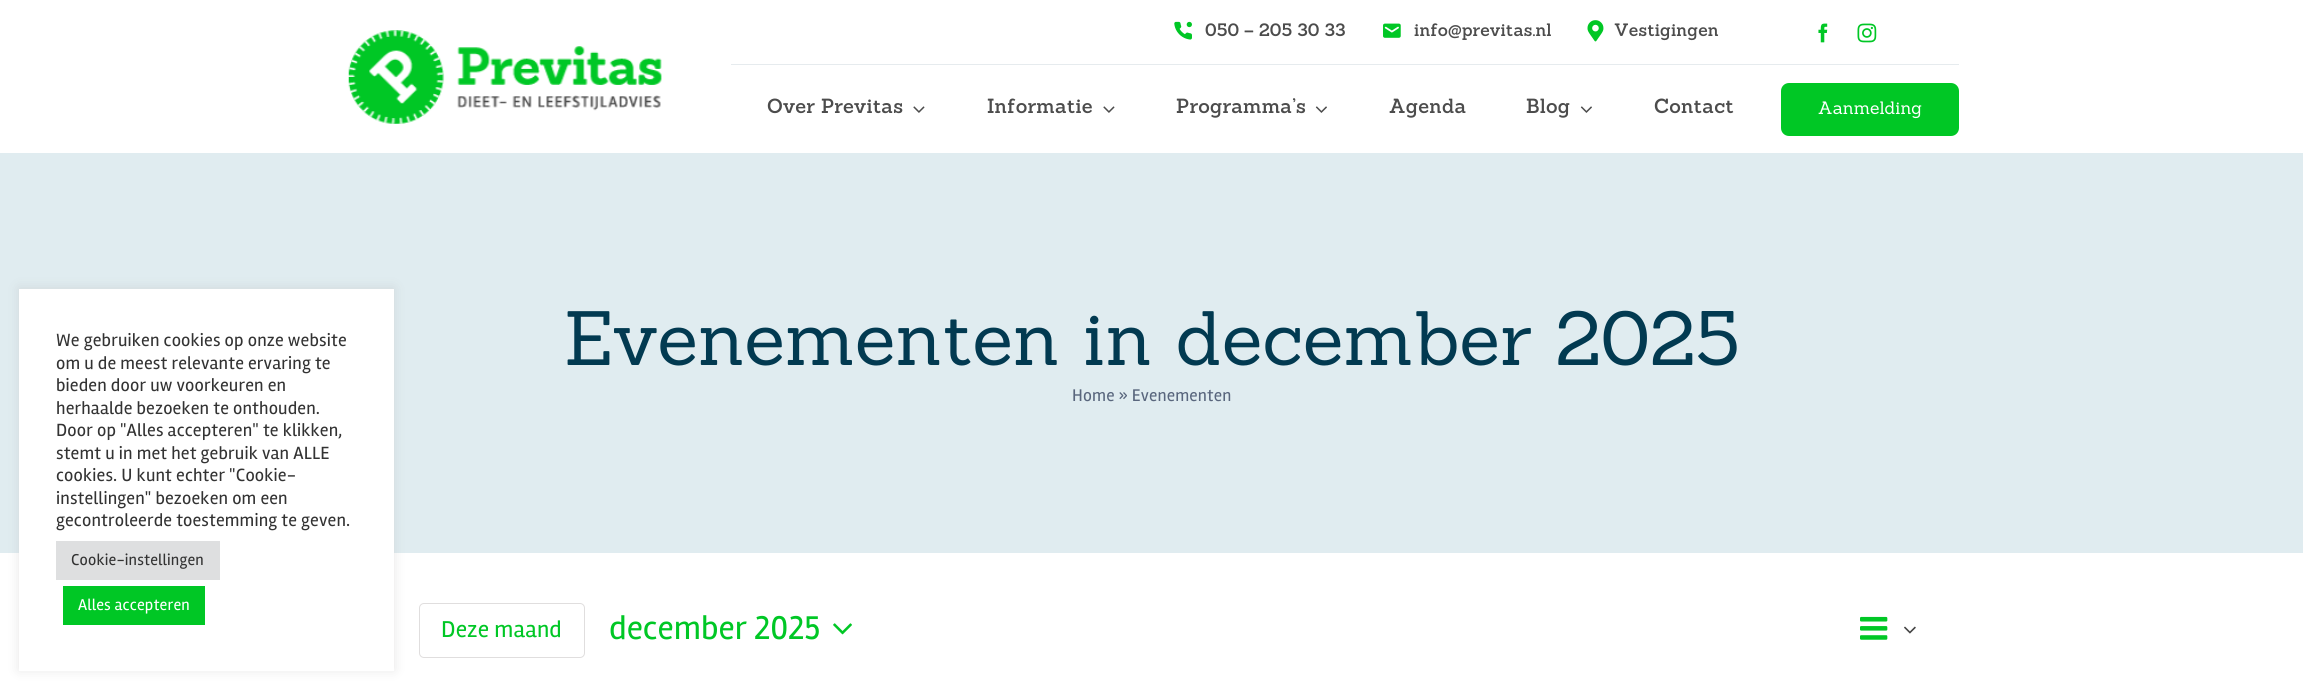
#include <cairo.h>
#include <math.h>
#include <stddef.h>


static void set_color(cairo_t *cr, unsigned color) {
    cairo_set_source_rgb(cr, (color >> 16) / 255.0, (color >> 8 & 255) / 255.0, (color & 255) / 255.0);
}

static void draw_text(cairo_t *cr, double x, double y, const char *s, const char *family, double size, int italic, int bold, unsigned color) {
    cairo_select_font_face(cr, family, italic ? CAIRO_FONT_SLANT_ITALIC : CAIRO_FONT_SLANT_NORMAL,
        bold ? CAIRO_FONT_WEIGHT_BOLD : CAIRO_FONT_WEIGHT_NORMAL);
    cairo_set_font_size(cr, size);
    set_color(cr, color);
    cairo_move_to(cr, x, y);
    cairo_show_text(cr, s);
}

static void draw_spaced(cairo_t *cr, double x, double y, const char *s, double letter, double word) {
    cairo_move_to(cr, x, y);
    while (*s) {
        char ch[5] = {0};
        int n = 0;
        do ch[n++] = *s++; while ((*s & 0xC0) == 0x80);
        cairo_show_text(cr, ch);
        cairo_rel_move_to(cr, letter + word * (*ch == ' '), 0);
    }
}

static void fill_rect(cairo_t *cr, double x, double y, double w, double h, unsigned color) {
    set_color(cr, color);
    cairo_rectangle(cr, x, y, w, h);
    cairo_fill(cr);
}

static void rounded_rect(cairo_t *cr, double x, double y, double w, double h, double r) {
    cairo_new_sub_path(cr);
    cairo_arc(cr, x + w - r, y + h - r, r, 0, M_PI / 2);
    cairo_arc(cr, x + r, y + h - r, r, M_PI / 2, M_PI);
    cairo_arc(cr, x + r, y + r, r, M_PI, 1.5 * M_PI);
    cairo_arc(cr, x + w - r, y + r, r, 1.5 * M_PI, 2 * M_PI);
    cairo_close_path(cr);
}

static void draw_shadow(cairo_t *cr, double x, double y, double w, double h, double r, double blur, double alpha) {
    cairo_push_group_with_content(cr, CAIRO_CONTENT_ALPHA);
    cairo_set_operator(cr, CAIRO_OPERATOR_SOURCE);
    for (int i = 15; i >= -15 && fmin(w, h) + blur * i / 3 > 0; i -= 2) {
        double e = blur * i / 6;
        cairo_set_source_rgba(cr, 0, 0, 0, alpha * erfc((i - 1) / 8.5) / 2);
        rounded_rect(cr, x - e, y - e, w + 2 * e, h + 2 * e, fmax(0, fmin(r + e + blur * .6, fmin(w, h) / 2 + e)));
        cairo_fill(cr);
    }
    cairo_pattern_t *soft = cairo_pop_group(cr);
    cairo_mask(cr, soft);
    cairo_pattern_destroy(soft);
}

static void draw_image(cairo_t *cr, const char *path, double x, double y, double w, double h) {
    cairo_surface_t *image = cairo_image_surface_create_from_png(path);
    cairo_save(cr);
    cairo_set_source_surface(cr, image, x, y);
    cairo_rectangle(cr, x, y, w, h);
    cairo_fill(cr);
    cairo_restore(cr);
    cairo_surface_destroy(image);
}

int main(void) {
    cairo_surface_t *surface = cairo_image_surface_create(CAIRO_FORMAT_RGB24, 2303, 690);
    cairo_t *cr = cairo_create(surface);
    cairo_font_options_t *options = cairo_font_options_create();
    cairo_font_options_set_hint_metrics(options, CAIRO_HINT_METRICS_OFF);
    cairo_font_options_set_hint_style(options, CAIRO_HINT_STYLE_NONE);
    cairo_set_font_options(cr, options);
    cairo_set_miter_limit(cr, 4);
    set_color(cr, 0xFFFFFF);
    cairo_paint(cr);
    fill_rect(cr, 0, 153, 2303, 400, 0xE0ECF0);
    set_color(cr, 0xACABAB);
    draw_shadow(cr, 19, 288, 375, 382, 0, 6, 0.3);
    fill_rect(cr, 19, 289, 375, 382, 0xFFFFFF);
    cairo_select_font_face(cr, "Rambla", CAIRO_FONT_SLANT_NORMAL, CAIRO_FONT_WEIGHT_NORMAL);
    cairo_set_font_size(cr, 18.3);
    set_color(cr, 0x333333);
    draw_spaced(cr, 56, 346, "We gebruiken cookies op onze website", 0.15, 0);
    draw_spaced(cr, 56, 369, "om u de meest relevante ervaring te", 0.15, 0);
    draw_spaced(cr, 56, 391, "bieden door uw voorkeuren en", 0.15, 0);
    draw_spaced(cr, 56, 414, "herhaalde bezoeken te onthouden.", 0.15, 0);
    draw_spaced(cr, 56, 436, "Door op \"Alles accepteren\" te klikken,", 0.15, 0);
    draw_spaced(cr, 56, 459, "stemt u in met het gebruik van ALLE", 0.15, 0);
    draw_spaced(cr, 56, 481, "cookies. U kunt echter \"Cookie-", 0.15, 0);
    draw_spaced(cr, 56, 504, "instellingen\" bezoeken om een", 0.15, 0);
    draw_spaced(cr, 56, 526, "gecontroleerde toestemming te geven.", 0.15, 0);
    fill_rect(cr, 56, 541, 164, 39, 0xDEDFE0);
    cairo_set_font_size(cr, 16.25);
    set_color(cr, 0x333333);
    draw_spaced(cr, 71, 565, "Cookie-instellingen", 0.15, 0);
    fill_rect(cr, 63, 586, 142, 39, 0x00C725);
    set_color(cr, 0xFFFFFF);
    draw_spaced(cr, 78, 610, "Alles accepteren", 0.15, 0);
    draw_image(cr, "assets/img1.png", 348, 30, 314, 94);
    fill_rect(cr, 731, 64, 1228, 1, 0xE6EBEE);
    draw_image(cr, "assets/img2.png", 1174, 21, 18, 19);
    cairo_select_font_face(cr, "Sanchez SemiBold", CAIRO_FONT_SLANT_NORMAL, CAIRO_FONT_WEIGHT_NORMAL);
    cairo_set_font_size(cr, 17.5);
    set_color(cr, 0x4C4C4C);
    draw_spaced(cr, 1205, 36, "050 – 205 30 33", 0.1, 0);
    draw_image(cr, "assets/img3.png", 1383, 23, 18, 15);
    draw_spaced(cr, 1414, 36, "info@previtas.nl", 0.1, 0);
    draw_image(cr, "assets/img4.png", 1587, 20, 17, 22);
    draw_spaced(cr, 1614, 36, "Vestigingen", 0.1, 0);
    draw_image(cr, "assets/img5.png", 1818, 23, 10, 20);
    draw_image(cr, "assets/img6.png", 1857, 23, 20, 20);
    cairo_set_font_size(cr, 20);
    draw_spaced(cr, 767, 113, "Over Previtas", 0.2, 0);
    draw_image(cr, "assets/img7.png", 913, 106, 12, 7);
    draw_spaced(cr, 987, 113, "Informatie", 0.2, 0);
    draw_image(cr, "assets/img7.png", 1103, 106, 12, 7);
    draw_spaced(cr, 1176, 113, "Programma’s", 0.2, 0);
    draw_image(cr, "assets/img8.png", 1315, 106, 12, 7);
    draw_spaced(cr, 1389, 113, "Agenda", 0.2, 0);
    draw_spaced(cr, 1526, 113, "Blog", 0.2, 0);
    draw_image(cr, "assets/img8.png", 1580, 106, 12, 7);
    draw_spaced(cr, 1654, 113, "Contact", 0.2, 0);
    set_color(cr, 0x00C725);
    rounded_rect(cr, 1781, 83, 178, 53, 8);
    cairo_fill(cr);
    draw_text(cr, 1818, 114, "Aanmelding", "Sanchez", 17.5, 0, 0, 0xFFFFFF);
    cairo_set_font_size(cr, 75);
    set_color(cr, 0x023A51);
    draw_spaced(cr, 564, 365, "Evenementen in december 2025", 0.15, 0);
    cairo_select_font_face(cr, "Rambla", CAIRO_FONT_SLANT_NORMAL, CAIRO_FONT_WEIGHT_NORMAL);
    cairo_set_font_size(cr, 17.5);
    set_color(cr, 0x59667D);
    draw_spaced(cr, 1072, 401, "Home » Evenementen", 0.15, 0);
    rounded_rect(cr, 419.5, 603.5, 165, 54, 4.5);
    set_color(cr, 0xE0DEDE);
    cairo_set_line_width(cr, 1);
    cairo_stroke(cr);
    cairo_set_font_size(cr, 23.75);
    set_color(cr, 0x00C725);
    draw_spaced(cr, 441, 637, "Deze maand", 0.15, 0);
    draw_text(cr, 609, 639, "december 2025", "Rambla", 34, 0, 0, 0x00C725);
    draw_image(cr, "assets/img9.png", 833, 623, 19, 12);
    draw_image(cr, "assets/img10.png", 1860, 616, 28, 24);
    draw_image(cr, "assets/img11.png", 1904, 626, 12, 8);
    cairo_surface_write_to_png(surface, "output.png");
    cairo_font_options_destroy(options);
    cairo_destroy(cr);
    cairo_surface_destroy(surface);
    return 0;
}
